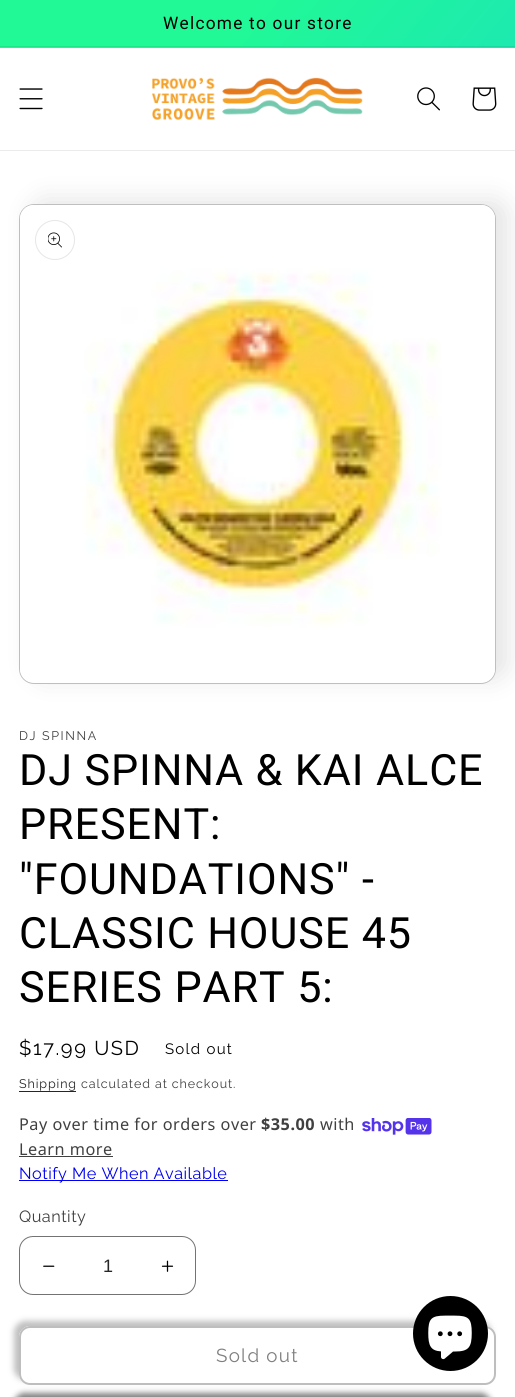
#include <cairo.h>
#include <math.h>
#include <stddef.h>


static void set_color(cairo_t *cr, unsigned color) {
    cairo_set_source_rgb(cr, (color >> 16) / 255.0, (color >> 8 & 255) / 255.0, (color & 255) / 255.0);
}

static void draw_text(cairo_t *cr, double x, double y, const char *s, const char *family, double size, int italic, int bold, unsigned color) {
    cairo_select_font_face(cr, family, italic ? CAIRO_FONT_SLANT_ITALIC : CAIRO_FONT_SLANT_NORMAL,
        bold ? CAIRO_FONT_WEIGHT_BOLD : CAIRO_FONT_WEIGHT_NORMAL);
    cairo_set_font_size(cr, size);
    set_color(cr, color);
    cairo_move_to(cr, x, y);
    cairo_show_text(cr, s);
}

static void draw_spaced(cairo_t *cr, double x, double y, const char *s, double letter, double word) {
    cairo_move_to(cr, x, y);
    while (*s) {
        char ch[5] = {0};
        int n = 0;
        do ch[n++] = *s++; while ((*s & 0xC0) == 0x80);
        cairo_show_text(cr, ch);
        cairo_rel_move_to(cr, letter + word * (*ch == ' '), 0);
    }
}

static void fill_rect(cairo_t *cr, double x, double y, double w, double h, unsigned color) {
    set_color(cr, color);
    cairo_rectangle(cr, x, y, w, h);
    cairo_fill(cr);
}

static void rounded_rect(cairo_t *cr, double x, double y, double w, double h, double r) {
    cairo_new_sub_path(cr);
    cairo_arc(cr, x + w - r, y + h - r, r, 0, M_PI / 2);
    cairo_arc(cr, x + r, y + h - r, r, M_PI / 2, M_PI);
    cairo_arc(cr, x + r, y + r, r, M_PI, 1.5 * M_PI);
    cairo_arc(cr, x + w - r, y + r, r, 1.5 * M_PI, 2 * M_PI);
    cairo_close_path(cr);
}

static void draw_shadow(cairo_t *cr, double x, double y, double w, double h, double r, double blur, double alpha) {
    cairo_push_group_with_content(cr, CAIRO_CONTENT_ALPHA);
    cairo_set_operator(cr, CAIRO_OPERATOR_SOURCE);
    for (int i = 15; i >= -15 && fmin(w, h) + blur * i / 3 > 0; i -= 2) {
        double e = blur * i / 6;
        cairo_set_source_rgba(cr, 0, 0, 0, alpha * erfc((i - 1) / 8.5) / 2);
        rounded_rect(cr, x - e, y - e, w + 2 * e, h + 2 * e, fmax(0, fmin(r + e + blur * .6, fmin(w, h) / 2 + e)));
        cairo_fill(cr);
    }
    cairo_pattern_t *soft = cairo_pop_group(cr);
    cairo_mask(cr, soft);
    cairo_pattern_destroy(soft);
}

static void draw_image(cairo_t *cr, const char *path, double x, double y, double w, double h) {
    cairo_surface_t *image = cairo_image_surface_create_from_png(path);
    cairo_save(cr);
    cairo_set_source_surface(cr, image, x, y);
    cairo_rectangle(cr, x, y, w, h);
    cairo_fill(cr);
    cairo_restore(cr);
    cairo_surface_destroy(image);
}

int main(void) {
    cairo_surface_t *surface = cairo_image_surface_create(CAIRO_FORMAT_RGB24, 515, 1397);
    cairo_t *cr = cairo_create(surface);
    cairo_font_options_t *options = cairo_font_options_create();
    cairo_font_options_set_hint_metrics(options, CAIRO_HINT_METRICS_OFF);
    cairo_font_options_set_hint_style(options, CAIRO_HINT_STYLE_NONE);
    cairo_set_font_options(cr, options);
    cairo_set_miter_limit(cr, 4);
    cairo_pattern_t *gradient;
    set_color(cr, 0xFFFFFF);
    cairo_paint(cr);
    gradient = cairo_pattern_create_linear(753, 1114, -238, 283);
    cairo_pattern_add_color_stop_rgba(gradient, 0.15, 0.067, 0.741, 0.984, 1);
    cairo_pattern_add_color_stop_rgba(gradient, 0.85, 0.129, 0.976, 0.588, 1);
    cairo_set_source(cr, gradient);
    cairo_pattern_destroy(gradient);
    cairo_rectangle(cr, 0, 0, 515, 48);
    cairo_fill(cr);
    gradient = cairo_pattern_create_linear(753, 1114, -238, 283);
    cairo_pattern_add_color_stop_rgba(gradient, 0.15, 0.063, 0.682, 0.906, 1);
    cairo_pattern_add_color_stop_rgba(gradient, 0.85, 0.118, 0.898, 0.541, 1);
    cairo_set_source(cr, gradient);
    cairo_pattern_destroy(gradient);
    cairo_rectangle(cr, 0, 46, 515, 1);
    cairo_fill(cr);
    cairo_select_font_face(cr, "Roboto", CAIRO_FONT_SLANT_NORMAL, CAIRO_FONT_WEIGHT_NORMAL);
    cairo_set_font_size(cr, 17.25);
    set_color(cr, 0x000000);
    draw_spaced(cr, 163, 29, "Welcome to our store", 1.25, 0);
    fill_rect(cr, 0, 150, 515, 1, 0xEBEBEB);
    draw_image(cr, "assets/img1.png", 19, 88, 24, 22);
    draw_image(cr, "assets/img2.png", 152, 77, 211, 43);
    draw_image(cr, "assets/img3.png", 417, 87, 23, 24);
    draw_image(cr, "assets/img4.png", 472, 87, 25, 24);
    set_color(cr, 0x000000);
    draw_shadow(cr, 31, 199, 478, 480, 15, 12.5, 0.1);
    set_color(cr, 0xFFFFFF);
    rounded_rect(cr, 19, 204, 477, 480, 15);
    cairo_fill(cr);
    rounded_rect(cr, 19.5, 204.5, 476, 479, 14.5);
    cairo_set_source_rgba(cr, 0, 0, 0, 0.25);
    cairo_set_line_width(cr, 1);
    cairo_stroke(cr);
    draw_image(cr, "assets/img5.png", 20, 205, 475, 477);
    cairo_arc(cr, 55, 240, 19.5, 0, 2 * M_PI);
    set_color(cr, 0xE6E6E6);
    cairo_stroke(cr);
    draw_image(cr, "assets/img6.png", 48, 232, 14, 16);
    cairo_select_font_face(cr, "Raleway", CAIRO_FONT_SLANT_NORMAL, CAIRO_FONT_WEIGHT_NORMAL);
    cairo_set_font_size(cr, 12.5);
    set_color(cr, 0x404040);
    draw_spaced(cr, 19, 740, "DJ SPINNA", 1.6, 0);
    cairo_select_font_face(cr, "Roboto", CAIRO_FONT_SLANT_NORMAL, CAIRO_FONT_WEIGHT_NORMAL);
    cairo_set_font_size(cr, 43.1);
    set_color(cr, 0x000000);
    draw_spaced(cr, 19, 785, "DJ SPINNA & KAI ALCE", 0.9, 0);
    draw_spaced(cr, 19, 839, "PRESENT:", 0.9, 0);
    draw_spaced(cr, 19, 894, "\"FOUNDATIONS\" -", 0.9, 0);
    draw_spaced(cr, 19, 948, "CLASSIC HOUSE 45", 0.9, 0);
    draw_spaced(cr, 19, 1002, "SERIES PART 5:", 0.9, 0);
    cairo_select_font_face(cr, "Raleway", CAIRO_FONT_SLANT_NORMAL, CAIRO_FONT_WEIGHT_NORMAL);
    cairo_set_font_size(cr, 20);
    draw_spaced(cr, 19, 1055, "$17.99 USD", 1.6, 0);
    cairo_set_font_size(cr, 15);
    draw_spaced(cr, 165, 1054, "Sold out", 1.25, 0);
    cairo_set_font_size(cr, 12.5);
    set_color(cr, 0x262626);
    draw_spaced(cr, 19, 1088, "Shipping", 0.9, 0);
    fill_rect(cr, 19, 1091, 57, 1, 0x262626);
    set_color(cr, 0x404040);
    draw_spaced(cr, 81, 1088, "calculated at checkout.", 0.9, 0);
    cairo_select_font_face(cr, "Noto Sans", CAIRO_FONT_SLANT_NORMAL, CAIRO_FONT_WEIGHT_NORMAL);
    cairo_set_font_size(cr, 16.25);
    draw_spaced(cr, 19, 1130, "Pay over time for orders over", 0.5, 0);
    cairo_select_font_face(cr, "Noto Sans", CAIRO_FONT_SLANT_NORMAL, CAIRO_FONT_WEIGHT_BOLD);
    draw_spaced(cr, 261, 1130, "$35.00", 0.5, 0);
    cairo_select_font_face(cr, "Noto Sans", CAIRO_FONT_SLANT_NORMAL, CAIRO_FONT_WEIGHT_NORMAL);
    draw_spaced(cr, 320, 1130, "with", 0.5, 0);
    draw_image(cr, "assets/img7.png", 362, 1118, 70, 17);
    draw_spaced(cr, 19, 1155, "Learn more", 0.5, 0);
    fill_rect(cr, 19, 1156, 94, 1, 0x404040);
    fill_rect(cr, 19, 1180, 209, 1, 0x0000EE);
    cairo_select_font_face(cr, "Raleway", CAIRO_FONT_SLANT_NORMAL, CAIRO_FONT_WEIGHT_NORMAL);
    draw_spaced(cr, 19, 1179, "Notify Me When Available", 0.5, 0);
    set_color(cr, 0x404040);
    draw_spaced(cr, 19, 1222, "Quantity", 0.5, 0);
    draw_image(cr, "assets/img8.png", 43, 1265, 12, 2);
    draw_image(cr, "assets/img9.png", 161, 1260, 13, 12);
    rounded_rect(cr, 19.5, 1236.5, 176, 58, 13.5);
    set_color(cr, 0x737373);
    cairo_stroke(cr);
    draw_text(cr, 103, 1272, "1", "Liberation Sans", 18, 0, 0, 0x262626);
    cairo_save(cr);
    cairo_set_fill_rule(cr, CAIRO_FILL_RULE_EVEN_ODD);
    cairo_new_path(cr);
    cairo_move_to(cr, 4, 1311);
    cairo_line_to(cr, 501, 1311);
    cairo_line_to(cr, 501, 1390);
    cairo_line_to(cr, 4, 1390);
    cairo_close_path(cr);
    cairo_move_to(cr, 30, 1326);
    cairo_line_to(cr, 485, 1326);
    cairo_curve_to(cr, 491, 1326, 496, 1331, 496, 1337);
    cairo_line_to(cr, 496, 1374);
    cairo_curve_to(cr, 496, 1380, 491, 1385, 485, 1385);
    cairo_line_to(cr, 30, 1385);
    cairo_curve_to(cr, 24, 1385, 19, 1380, 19, 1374);
    cairo_line_to(cr, 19, 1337);
    cairo_curve_to(cr, 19, 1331, 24, 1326, 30, 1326);
    cairo_close_path(cr);
    cairo_clip(cr);
    set_color(cr, 0x7F7F7F);
    draw_shadow(cr, 14, 1321, 477, 59, 11, 3, 0.5);
    cairo_restore(cr);
    set_color(cr, 0x000000);
    draw_shadow(cr, 14, 1393, 477, 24, 11, 3, 0.5);
    rounded_rect(cr, 19.5, 1326.5, 476, 58, 10.5);
    set_color(cr, 0xFFFFFF);
    cairo_stroke(cr);
    rounded_rect(cr, 20, 1327, 475, 57, 10);
    cairo_set_source_rgba(cr, 0.498, 0.498, 0.498, 0.5);
    cairo_set_line_width(cr, 2);
    cairo_stroke(cr);
    cairo_select_font_face(cr, "Raleway", CAIRO_FONT_SLANT_NORMAL, CAIRO_FONT_WEIGHT_NORMAL);
    cairo_set_font_size(cr, 18.75);
    set_color(cr, 0x808080);
    draw_spaced(cr, 216, 1362, "Sold out", 1.25, 0);
    set_color(cr, 0x000000);
    cairo_new_path(cr);
    cairo_arc(cr, 450.5, 1333.5, 37.5, 0, 2 * M_PI);
    cairo_fill(cr);
    draw_image(cr, "assets/img10.png", 428, 1315, 44, 45);
    cairo_surface_write_to_png(surface, "output.png");
    cairo_font_options_destroy(options);
    cairo_destroy(cr);
    cairo_surface_destroy(surface);
    return 0;
}
